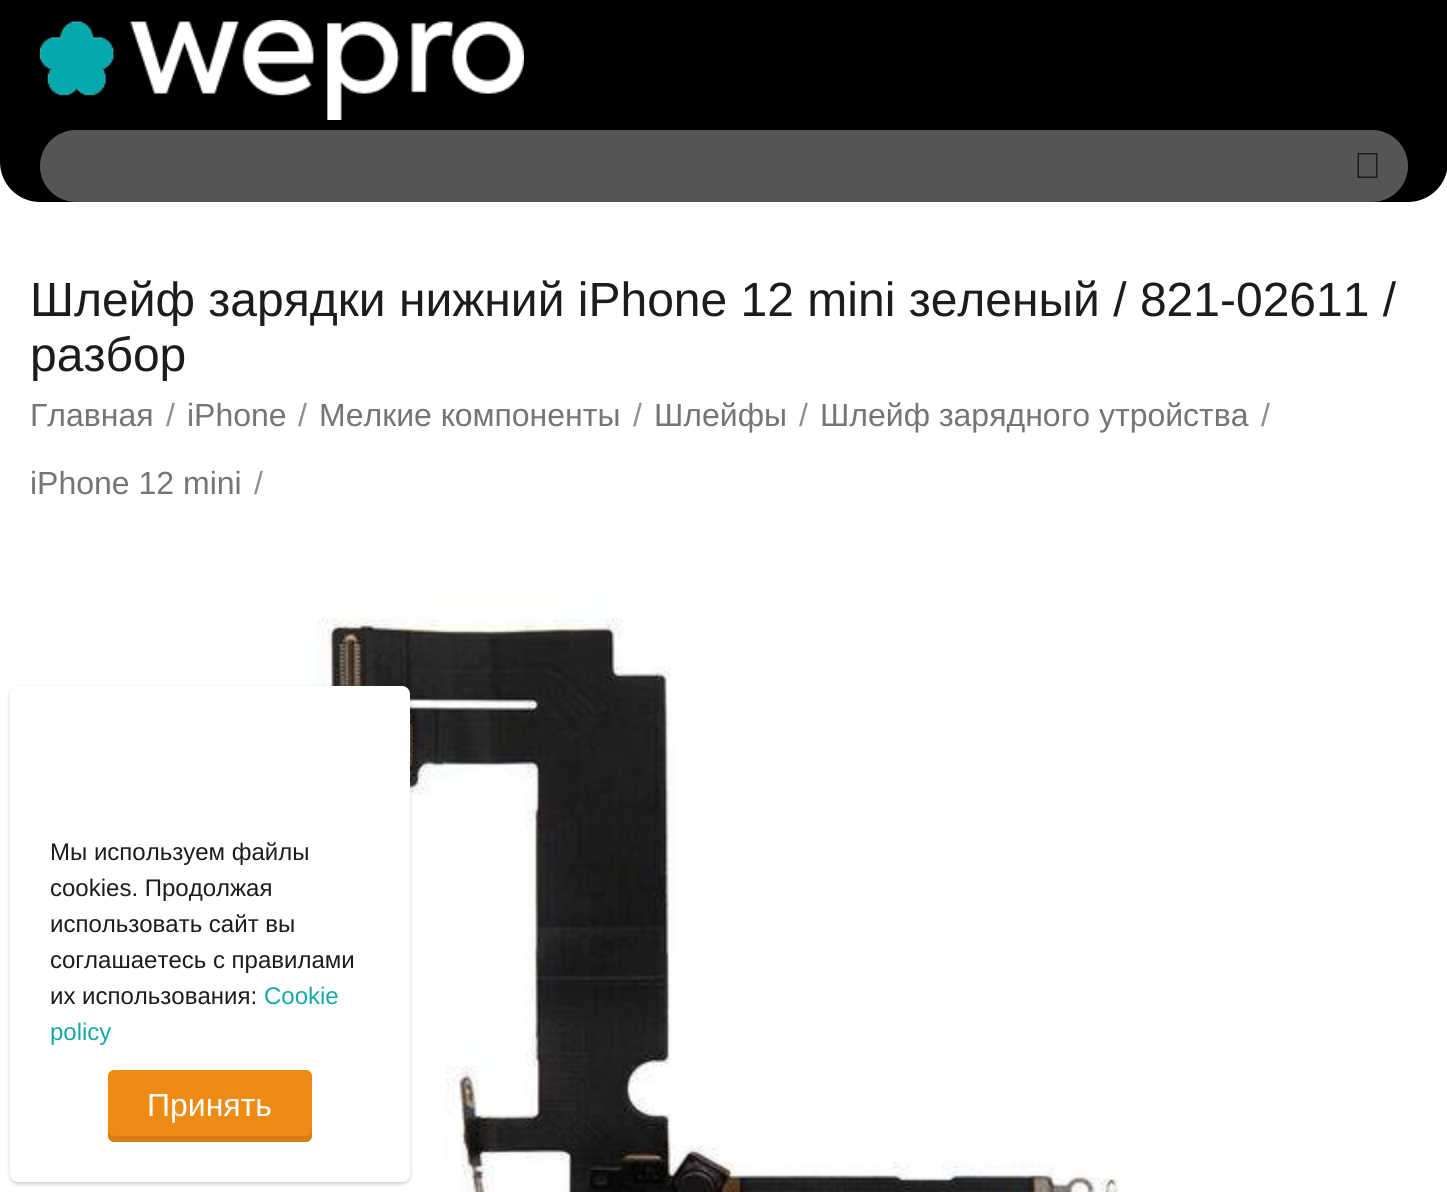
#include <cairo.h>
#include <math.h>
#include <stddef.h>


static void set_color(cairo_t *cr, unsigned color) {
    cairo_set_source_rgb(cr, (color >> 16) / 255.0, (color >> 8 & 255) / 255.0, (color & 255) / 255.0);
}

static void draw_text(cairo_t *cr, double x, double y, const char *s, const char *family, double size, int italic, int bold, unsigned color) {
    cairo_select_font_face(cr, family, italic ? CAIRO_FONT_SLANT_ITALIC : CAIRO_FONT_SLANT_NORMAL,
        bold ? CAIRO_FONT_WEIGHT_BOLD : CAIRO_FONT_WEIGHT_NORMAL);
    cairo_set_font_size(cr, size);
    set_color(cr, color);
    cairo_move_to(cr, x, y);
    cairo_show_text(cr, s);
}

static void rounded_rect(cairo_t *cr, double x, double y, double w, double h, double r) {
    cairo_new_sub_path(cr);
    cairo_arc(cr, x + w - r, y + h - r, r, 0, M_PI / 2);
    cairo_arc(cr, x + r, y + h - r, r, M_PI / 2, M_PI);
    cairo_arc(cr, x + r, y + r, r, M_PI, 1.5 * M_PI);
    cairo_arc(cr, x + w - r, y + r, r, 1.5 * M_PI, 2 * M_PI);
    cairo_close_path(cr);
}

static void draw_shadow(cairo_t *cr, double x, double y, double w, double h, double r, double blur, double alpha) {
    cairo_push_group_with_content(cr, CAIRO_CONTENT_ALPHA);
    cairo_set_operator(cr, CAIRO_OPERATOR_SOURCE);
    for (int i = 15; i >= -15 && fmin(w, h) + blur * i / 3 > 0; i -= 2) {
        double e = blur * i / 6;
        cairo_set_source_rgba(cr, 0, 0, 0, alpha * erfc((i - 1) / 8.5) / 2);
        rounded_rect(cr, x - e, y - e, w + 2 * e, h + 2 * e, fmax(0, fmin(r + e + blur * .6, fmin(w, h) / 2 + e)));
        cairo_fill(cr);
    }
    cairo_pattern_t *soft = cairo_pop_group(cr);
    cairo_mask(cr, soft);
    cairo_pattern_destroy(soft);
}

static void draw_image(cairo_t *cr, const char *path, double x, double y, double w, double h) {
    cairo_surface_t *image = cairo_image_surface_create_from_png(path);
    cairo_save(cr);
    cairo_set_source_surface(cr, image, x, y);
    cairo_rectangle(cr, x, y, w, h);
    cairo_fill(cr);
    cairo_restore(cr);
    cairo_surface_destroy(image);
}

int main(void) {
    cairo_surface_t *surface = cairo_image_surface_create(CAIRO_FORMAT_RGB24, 1447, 1192);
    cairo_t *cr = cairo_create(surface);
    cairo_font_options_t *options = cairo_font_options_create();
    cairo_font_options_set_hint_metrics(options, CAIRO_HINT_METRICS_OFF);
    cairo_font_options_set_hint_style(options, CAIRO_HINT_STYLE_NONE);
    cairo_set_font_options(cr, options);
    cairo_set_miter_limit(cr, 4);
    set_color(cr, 0xFFFFFF);
    cairo_paint(cr);
    set_color(cr, 0x000000);
    cairo_new_path(cr);
    cairo_move_to(cr, 0, 0);
    cairo_line_to(cr, 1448, 0);
    cairo_line_to(cr, 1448, 162);
    cairo_curve_to(cr, 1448, 184, 1430, 202, 1408, 202);
    cairo_line_to(cr, 40, 202);
    cairo_curve_to(cr, 18, 202, 0, 184, 0, 162);
    cairo_close_path(cr);
    cairo_fill(cr);
    draw_image(cr, "assets/img1.png", 40, 20, 484, 100);
    set_color(cr, 0x555555);
    rounded_rect(cr, 40, 130, 1368, 72, 36);
    cairo_fill(cr);
    set_color(cr, 0x1C1C1C);
    cairo_new_path(cr);
    cairo_move_to(cr, 1357.5, 153);
    cairo_line_to(cr, 1377.5, 153);
    cairo_line_to(cr, 1377.5, 178);
    cairo_line_to(cr, 1357.5, 178);
    cairo_close_path(cr);
    cairo_move_to(cr, 1359, 154.5);
    cairo_line_to(cr, 1359, 176.5);
    cairo_line_to(cr, 1376, 176.5);
    cairo_line_to(cr, 1376, 154.5);
    cairo_close_path(cr);
    cairo_fill(cr);
    draw_text(cr, 30, 316, "Шлейф зарядки нижний iPhone 12 mini зеленый / 821-02611 /", "Liberation Sans", 48, 0, 0, 0x1C1C1C);
    draw_text(cr, 30, 371, "разбор", "Liberation Sans", 48, 0, 0, 0x1C1C1C);
    draw_text(cr, 30, 426, "Главная", "Liberation Sans", 32, 0, 0, 0x757575);
    draw_text(cr, 166, 426, "/", "Liberation Sans", 32, 0, 0, 0x8F8F8F);
    draw_text(cr, 187, 426, "iPhone", "Liberation Sans", 32, 0, 0, 0x757575);
    draw_text(cr, 298, 426, "/", "Liberation Sans", 32, 0, 0, 0x8F8F8F);
    draw_text(cr, 319, 426, "Мелкие компоненты", "Liberation Sans", 32, 0, 0, 0x757575);
    draw_text(cr, 633, 426, "/", "Liberation Sans", 32, 0, 0, 0x8F8F8F);
    draw_text(cr, 654, 426, "Шлейфы", "Liberation Sans", 32, 0, 0, 0x757575);
    draw_text(cr, 799, 426, "/", "Liberation Sans", 32, 0, 0, 0x8F8F8F);
    draw_text(cr, 820, 426, "Шлейф зарядного утройства", "Liberation Sans", 32, 0, 0, 0x757575);
    draw_text(cr, 1261, 426, "/", "Liberation Sans", 32, 0, 0, 0x8F8F8F);
    draw_text(cr, 30, 494, "iPhone 12 mini", "Liberation Sans", 32, 0, 0, 0x757575);
    draw_text(cr, 254, 494, "/", "Liberation Sans", 32, 0, 0, 0x8F8F8F);
    draw_image(cr, "assets/img2.png", 314, 603, 805, 589);
    set_color(cr, 0x000000);
    draw_shadow(cr, 10, 688, 400, 496, 8, 2, 0.2);
    set_color(cr, 0xFFFFFF);
    rounded_rect(cr, 10, 686, 400, 496, 8);
    cairo_fill(cr);
    draw_text(cr, 50, 860, "Мы используем файлы", "Liberation Sans", 24, 0, 0, 0x1C1C1C);
    draw_text(cr, 50, 896, "cookies. Продолжая", "Liberation Sans", 24, 0, 0, 0x1C1C1C);
    draw_text(cr, 50, 932, "использовать сайт вы", "Liberation Sans", 24, 0, 0, 0x1C1C1C);
    draw_text(cr, 50, 968, "соглашаетесь с правилами", "Liberation Sans", 24, 0, 0, 0x1C1C1C);
    draw_text(cr, 50, 1004, "их использования:", "Liberation Sans", 24, 0, 0, 0x1C1C1C);
    draw_text(cr, 264, 1004, "Cookie", "Liberation Sans", 24, 0, 0, 0x15A8A9);
    draw_text(cr, 50, 1040, "policy", "Liberation Sans", 24, 0, 0, 0x15A8A9);
    set_color(cr, 0xEE8B15);
    rounded_rect(cr, 108, 1070, 204, 72, 6);
    cairo_fill(cr);
    cairo_set_source_rgba(cr, 0, 0, 0, 0.1);
    cairo_new_path(cr);
    cairo_move_to(cr, 108, 1130);
    cairo_line_to(cr, 108, 1136);
    cairo_curve_to(cr, 108, 1139, 111, 1142, 114, 1142);
    cairo_line_to(cr, 306, 1142);
    cairo_curve_to(cr, 309, 1142, 312, 1139, 312, 1136);
    cairo_line_to(cr, 312, 1130);
    cairo_curve_to(cr, 312, 1133, 309, 1136, 306, 1136);
    cairo_line_to(cr, 114, 1136);
    cairo_curve_to(cr, 111, 1136, 108, 1133, 108, 1130);
    cairo_close_path(cr);
    cairo_fill(cr);
    draw_text(cr, 147, 1116, "Принять", "Liberation Sans", 32, 0, 0, 0xFFFFFF);
    cairo_surface_write_to_png(surface, "output.png");
    cairo_font_options_destroy(options);
    cairo_destroy(cr);
    cairo_surface_destroy(surface);
    return 0;
}
